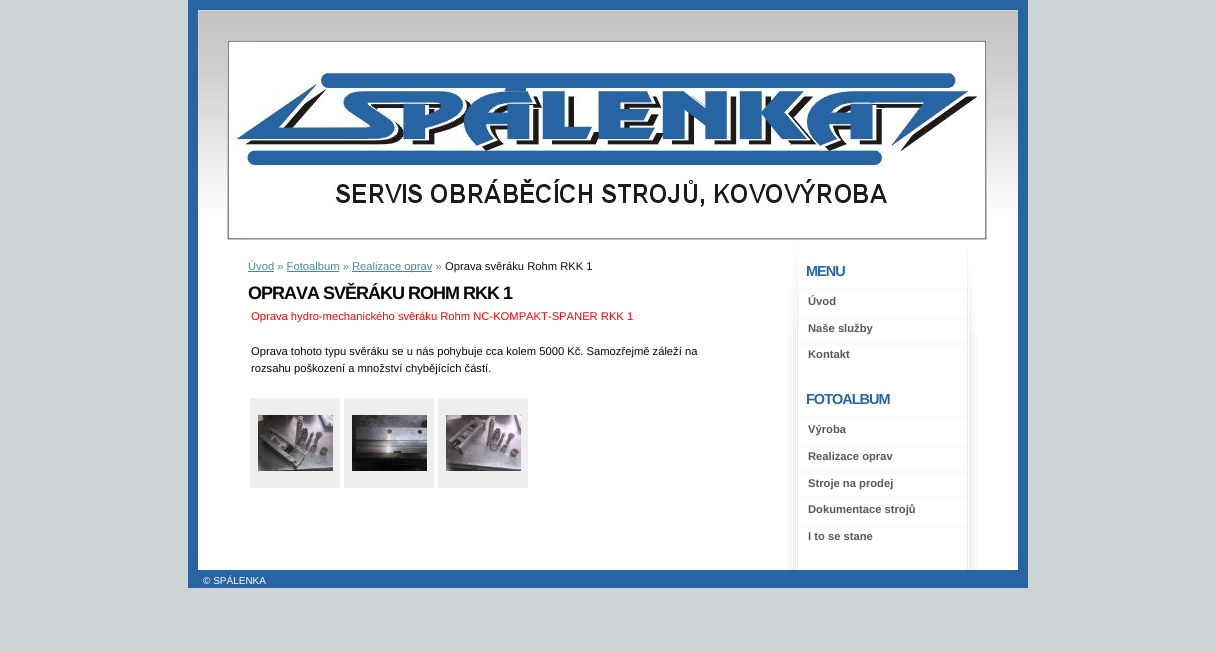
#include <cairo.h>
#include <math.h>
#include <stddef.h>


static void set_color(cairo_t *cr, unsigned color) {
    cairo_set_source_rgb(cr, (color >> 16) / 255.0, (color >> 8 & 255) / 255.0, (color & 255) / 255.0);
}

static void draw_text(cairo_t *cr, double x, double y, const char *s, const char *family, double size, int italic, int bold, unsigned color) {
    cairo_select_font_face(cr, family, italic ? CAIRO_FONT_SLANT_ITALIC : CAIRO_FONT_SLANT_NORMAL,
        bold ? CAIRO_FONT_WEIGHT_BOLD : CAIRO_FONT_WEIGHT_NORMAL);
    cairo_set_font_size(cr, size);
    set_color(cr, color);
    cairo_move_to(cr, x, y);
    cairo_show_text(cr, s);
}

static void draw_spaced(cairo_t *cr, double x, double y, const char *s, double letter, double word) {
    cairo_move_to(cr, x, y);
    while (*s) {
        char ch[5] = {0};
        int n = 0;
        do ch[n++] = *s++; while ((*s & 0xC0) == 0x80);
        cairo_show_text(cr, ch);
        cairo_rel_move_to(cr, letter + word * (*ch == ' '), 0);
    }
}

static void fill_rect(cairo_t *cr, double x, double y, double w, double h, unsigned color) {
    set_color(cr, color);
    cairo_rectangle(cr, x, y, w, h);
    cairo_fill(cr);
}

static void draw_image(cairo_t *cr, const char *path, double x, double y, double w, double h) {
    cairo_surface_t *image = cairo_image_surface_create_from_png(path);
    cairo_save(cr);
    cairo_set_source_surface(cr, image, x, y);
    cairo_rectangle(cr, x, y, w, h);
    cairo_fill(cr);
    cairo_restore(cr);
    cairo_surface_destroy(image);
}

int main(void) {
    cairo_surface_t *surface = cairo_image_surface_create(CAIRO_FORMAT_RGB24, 1216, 652);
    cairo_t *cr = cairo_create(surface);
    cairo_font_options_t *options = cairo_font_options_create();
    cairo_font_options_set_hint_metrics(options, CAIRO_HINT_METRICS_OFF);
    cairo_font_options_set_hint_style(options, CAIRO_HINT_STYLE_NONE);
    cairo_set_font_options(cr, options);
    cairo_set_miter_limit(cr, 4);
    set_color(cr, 0xD0D3D5);
    cairo_paint(cr);
    fill_rect(cr, 198, 0, 820, 10, 0x2864A2);
    fill_rect(cr, 1018, 0, 10, 570, 0x2864A2);
    fill_rect(cr, 188, 0, 10, 588, 0x2864A2);
    fill_rect(cr, 198, 209, 820, 361, 0xFFFFFF);
    draw_image(cr, "assets/img1.png", 788, 331, 189, 239);
    draw_image(cr, "assets/img2.png", 198, 10, 820, 199);
    draw_image(cr, "assets/img3.png", 227, 40, 760, 200);
    draw_text(cr, 248, 270, "Úvod » Fotoalbum »", "Liberation Sans", 11.2, 0, 0, 0x488A90);
    fill_rect(cr, 248, 271, 26, 1, 0x488A90);
    fill_rect(cr, 352, 271, 80, 1, 0x488A90);
    draw_text(cr, 352, 270, "Realizace oprav »", "Liberation Sans", 11.2, 0, 0, 0x488A90);
    draw_text(cr, 445, 270, "Oprava svěráku Rohm RKK 1", "Liberation Sans", 11.2, 0, 0, 0x0E0E0E);
    fill_rect(cr, 287, 271, 52, 1, 0x488A90);
    cairo_select_font_face(cr, "Liberation Sans", CAIRO_FONT_SLANT_NORMAL, CAIRO_FONT_WEIGHT_BOLD);
    cairo_set_font_size(cr, 18);
    set_color(cr, 0x050505);
    draw_spaced(cr, 248, 299, "OPRAVA SVĚRÁKU ROHM RKK 1", -1, 0);
    draw_text(cr, 251, 320, "Oprava hydro-mechanického svěráku Rohm NC-KOMPAKT-SPANER RKK 1", "Liberation Sans", 11.2, 0, 0, 0xFF0000);
    draw_text(cr, 251, 355, "Oprava tohoto typu svěráku se u nás pohybuje cca kolem 5000 Kč. Samozřejmě záleží na", "Liberation Sans", 11.2, 0, 0, 0x050505);
    draw_text(cr, 251, 372, "rozsahu poškození a množství chybějících částí.", "Liberation Sans", 11.2, 0, 0, 0x050505);
    fill_rect(cr, 250, 398, 90, 90, 0xEEEEEE);
    draw_image(cr, "assets/img4.png", 258, 415, 75, 56);
    fill_rect(cr, 344, 398, 90, 90, 0xEEEEEE);
    draw_image(cr, "assets/img5.png", 352, 415, 75, 56);
    fill_rect(cr, 438, 398, 90, 90, 0xEEEEEE);
    draw_image(cr, "assets/img6.png", 446, 415, 75, 56);
    draw_image(cr, "assets/img7.png", 788, 240, 189, 91);
    cairo_select_font_face(cr, "Liberation Sans", CAIRO_FONT_SLANT_NORMAL, CAIRO_FONT_WEIGHT_BOLD);
    cairo_set_font_size(cr, 14.5);
    set_color(cr, 0x2864A2);
    draw_spaced(cr, 806, 276, "MENU", -1, 0);
    fill_rect(cr, 798, 288, 169, 5, 0xFCFCFC);
    draw_text(cr, 808, 305, "Úvod", "Liberation Sans", 11.2, 0, 1, 0x585858);
    fill_rect(cr, 798, 315, 169, 5, 0xFCFCFC);
    draw_text(cr, 808, 332, "Naše služby", "Liberation Sans", 11.2, 0, 1, 0x585858);
    fill_rect(cr, 798, 341, 169, 5, 0xFCFCFC);
    draw_text(cr, 808, 358, "Kontakt", "Liberation Sans", 11.2, 0, 1, 0x585858);
    cairo_set_font_size(cr, 14.5);
    set_color(cr, 0x2864A2);
    draw_spaced(cr, 806, 404, "FOTOALBUM", -1, 0);
    fill_rect(cr, 798, 416, 169, 5, 0xFCFCFC);
    draw_text(cr, 808, 433, "Výroba", "Liberation Sans", 11.2, 0, 1, 0x585858);
    fill_rect(cr, 798, 443, 169, 5, 0xFCFCFC);
    draw_text(cr, 808, 460, "Realizace oprav", "Liberation Sans", 11.2, 0, 1, 0x585858);
    fill_rect(cr, 798, 470, 169, 5, 0xFCFCFC);
    draw_text(cr, 808, 487, "Stroje na prodej", "Liberation Sans", 11.2, 0, 1, 0x585858);
    fill_rect(cr, 798, 496, 169, 5, 0xFCFCFC);
    draw_text(cr, 808, 513, "Dokumentace strojů", "Liberation Sans", 11.2, 0, 1, 0x585858);
    fill_rect(cr, 798, 523, 169, 5, 0xFCFCFC);
    draw_text(cr, 808, 540, "I to se stane", "Liberation Sans", 11.2, 0, 1, 0x585858);
    fill_rect(cr, 198, 570, 830, 18, 0x2864A2);
    draw_text(cr, 203, 584, "© SPÁLENKA", "Liberation Sans", 10, 0, 0, 0xFFFFFF);
    cairo_surface_write_to_png(surface, "output.png");
    cairo_font_options_destroy(options);
    cairo_destroy(cr);
    cairo_surface_destroy(surface);
    return 0;
}
